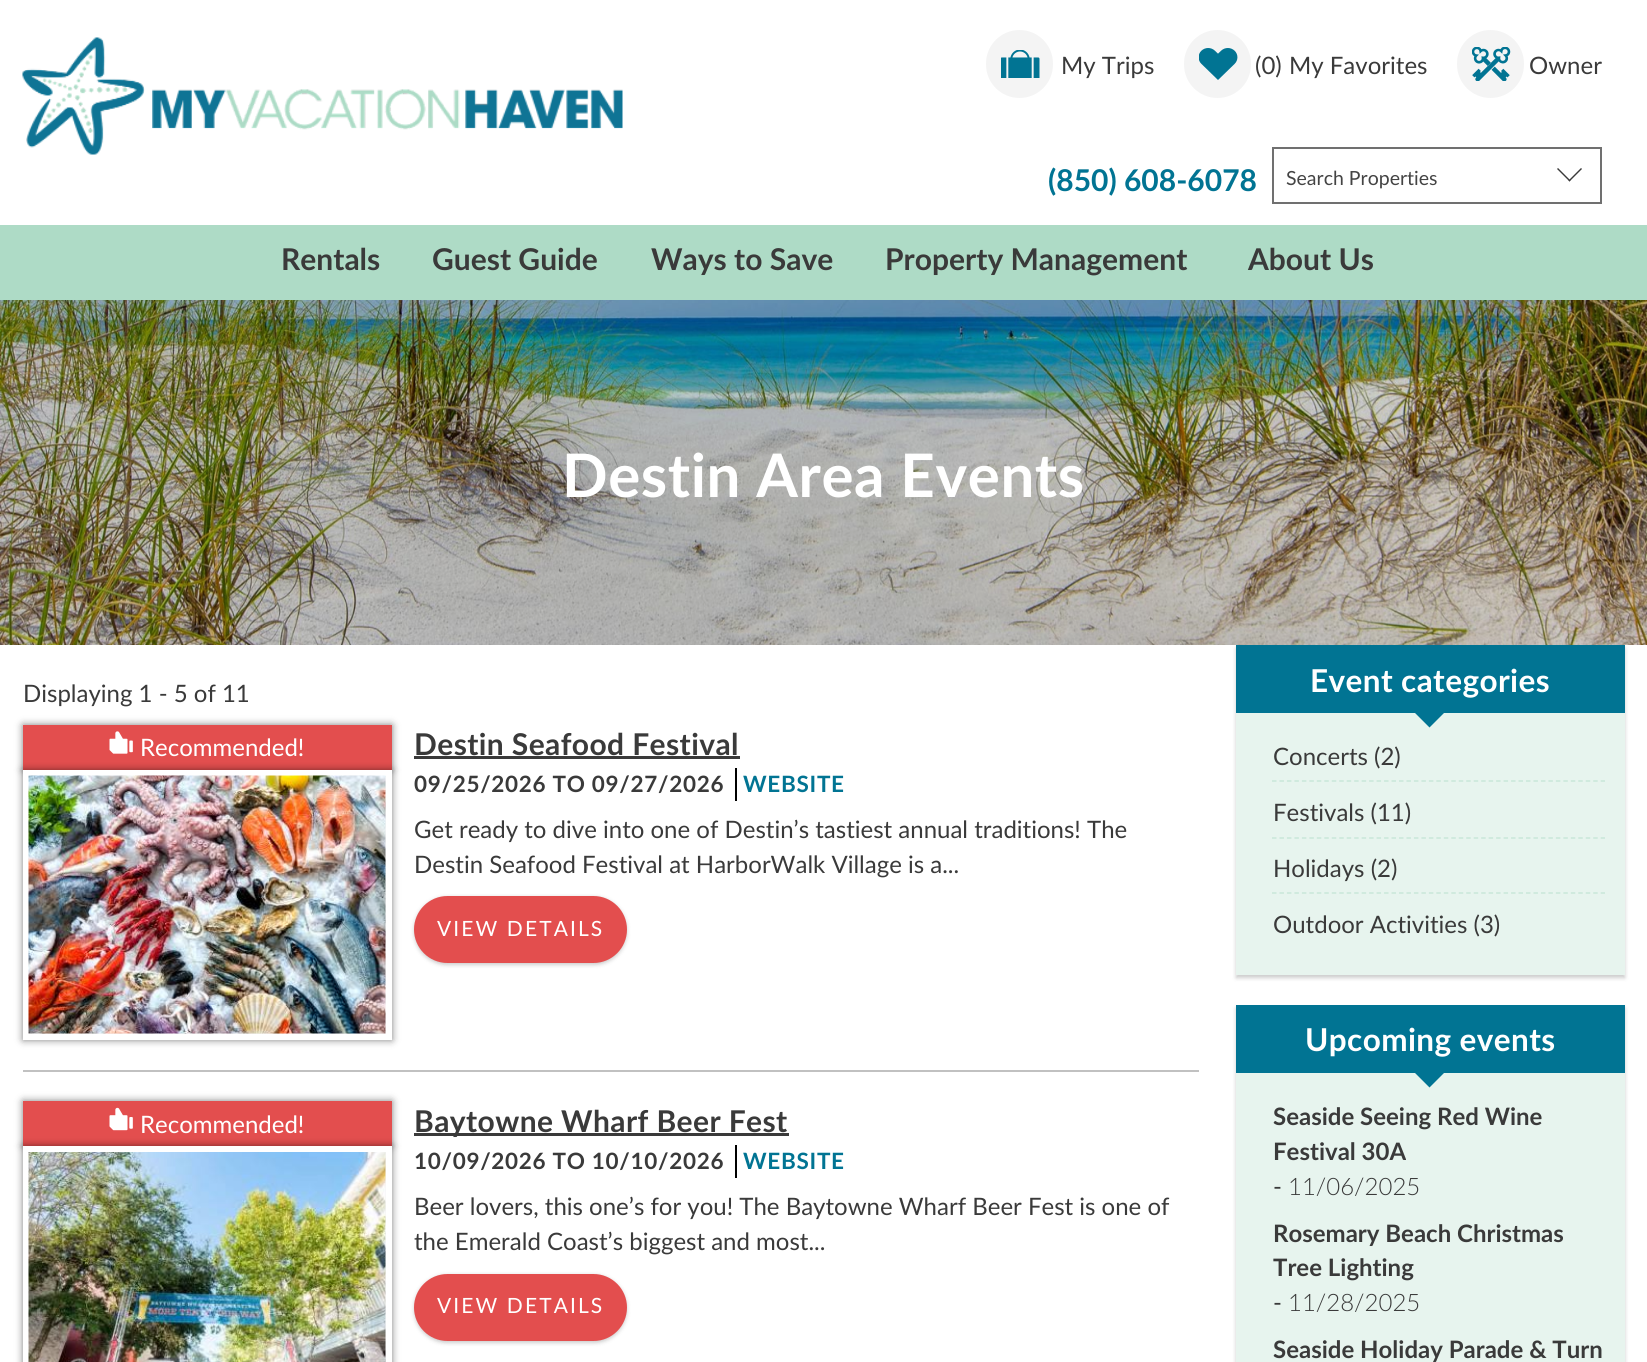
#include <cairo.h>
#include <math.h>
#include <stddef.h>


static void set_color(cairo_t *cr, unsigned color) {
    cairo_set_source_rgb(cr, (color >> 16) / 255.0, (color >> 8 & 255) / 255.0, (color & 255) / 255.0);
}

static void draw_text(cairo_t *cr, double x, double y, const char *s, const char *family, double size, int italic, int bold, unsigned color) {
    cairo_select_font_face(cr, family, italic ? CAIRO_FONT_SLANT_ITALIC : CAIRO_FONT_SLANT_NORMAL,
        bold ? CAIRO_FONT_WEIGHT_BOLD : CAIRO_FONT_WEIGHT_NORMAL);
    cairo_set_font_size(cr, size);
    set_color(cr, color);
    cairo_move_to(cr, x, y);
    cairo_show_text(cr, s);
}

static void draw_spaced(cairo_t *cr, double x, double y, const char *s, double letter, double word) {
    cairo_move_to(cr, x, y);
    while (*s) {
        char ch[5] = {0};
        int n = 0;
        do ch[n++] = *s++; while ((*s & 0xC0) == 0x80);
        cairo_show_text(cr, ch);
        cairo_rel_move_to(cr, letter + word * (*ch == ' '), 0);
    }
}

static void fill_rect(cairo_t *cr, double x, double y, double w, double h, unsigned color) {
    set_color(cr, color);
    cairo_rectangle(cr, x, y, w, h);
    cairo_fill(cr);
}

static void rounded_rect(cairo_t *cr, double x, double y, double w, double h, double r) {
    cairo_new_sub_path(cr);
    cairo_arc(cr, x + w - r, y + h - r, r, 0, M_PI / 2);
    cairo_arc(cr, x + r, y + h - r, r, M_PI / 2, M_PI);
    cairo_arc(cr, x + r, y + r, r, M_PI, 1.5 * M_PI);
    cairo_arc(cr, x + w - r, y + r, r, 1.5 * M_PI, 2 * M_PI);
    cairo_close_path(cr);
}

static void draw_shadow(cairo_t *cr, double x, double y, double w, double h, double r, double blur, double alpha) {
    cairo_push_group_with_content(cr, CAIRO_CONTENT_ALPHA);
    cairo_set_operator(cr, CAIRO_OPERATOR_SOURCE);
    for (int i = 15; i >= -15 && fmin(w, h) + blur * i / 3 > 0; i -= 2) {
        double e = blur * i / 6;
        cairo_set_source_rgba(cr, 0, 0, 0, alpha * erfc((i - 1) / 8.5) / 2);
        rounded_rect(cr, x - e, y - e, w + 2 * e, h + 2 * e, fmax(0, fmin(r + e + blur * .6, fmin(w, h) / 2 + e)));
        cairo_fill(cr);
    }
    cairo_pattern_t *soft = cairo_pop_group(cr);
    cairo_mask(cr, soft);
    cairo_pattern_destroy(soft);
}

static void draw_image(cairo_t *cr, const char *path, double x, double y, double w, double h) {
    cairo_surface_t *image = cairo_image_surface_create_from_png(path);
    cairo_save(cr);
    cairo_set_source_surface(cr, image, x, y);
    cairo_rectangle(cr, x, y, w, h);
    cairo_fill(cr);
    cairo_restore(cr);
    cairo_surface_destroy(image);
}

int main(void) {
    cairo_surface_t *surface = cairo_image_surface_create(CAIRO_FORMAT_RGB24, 1647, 1362);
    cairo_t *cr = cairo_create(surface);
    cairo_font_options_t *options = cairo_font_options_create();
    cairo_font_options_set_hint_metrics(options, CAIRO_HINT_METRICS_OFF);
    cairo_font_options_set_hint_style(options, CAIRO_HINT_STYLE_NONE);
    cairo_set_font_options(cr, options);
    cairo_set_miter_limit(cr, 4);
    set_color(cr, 0xFFFFFF);
    cairo_paint(cr);
    draw_image(cr, "assets/img1.png", 22, 37, 601, 118);
    set_color(cr, 0xF4F4F4);
    rounded_rect(cr, 986, 30, 67, 68, 33.5);
    cairo_fill(cr);
    draw_image(cr, "assets/img2.png", 1001, 50, 39, 28);
    draw_text(cr, 1061, 74, "My Trips", "Lato", 24, 0, 0, 0x3A3A3A);
    set_color(cr, 0xF4F4F4);
    rounded_rect(cr, 1184, 30, 67, 68, 33.5);
    cairo_fill(cr);
    draw_image(cr, "assets/img3.png", 1199, 48, 39, 32);
    draw_text(cr, 1255, 74, "(0)", "Lato", 24, 0, 0, 0x3A3A3A);
    draw_text(cr, 1289, 74, "My Favorites", "Lato", 24, 0, 0, 0x3A3A3A);
    set_color(cr, 0xF4F4F4);
    rounded_rect(cr, 1457, 30, 67, 68, 33.5);
    cairo_fill(cr);
    draw_image(cr, "assets/img4.png", 1472, 47, 39, 34);
    draw_text(cr, 1529, 74, "Owner", "Lato", 24, 0, 0, 0x3A3A3A);
    draw_text(cr, 1048, 191, "(850) 608-6078", "Lato", 30, 0, 1, 0x017493);
    cairo_rectangle(cr, 1273, 148, 328, 55);
    set_color(cr, 0x707070);
    cairo_stroke(cr);
    draw_text(cr, 1286, 185, "Search Properties", "Lato", 19.5, 0, 0, 0x444444);
    set_color(cr, 0x3A3A3A);
    cairo_new_path(cr);
    cairo_move_to(cr, 1582, 169);
    cairo_line_to(cr, 1569.5, 181.5);
    cairo_line_to(cr, 1568.5, 180.5);
    cairo_line_to(cr, 1581, 168);
    cairo_close_path(cr);
    cairo_fill(cr);
    cairo_new_path(cr);
    cairo_move_to(cr, 1570.5, 180.5);
    cairo_line_to(cr, 1569.5, 181.5);
    cairo_line_to(cr, 1557, 169);
    cairo_line_to(cr, 1558, 168);
    cairo_close_path(cr);
    cairo_fill(cr);
    fill_rect(cr, 0, 225, 1647, 75, 0xAEDBC6);
    draw_text(cr, 281, 270, "Rentals", "Lato", 30, 0, 1, 0x3A3A3A);
    draw_text(cr, 432, 270, "Guest Guide", "Lato", 30, 0, 1, 0x3A3A3A);
    draw_text(cr, 651, 270, "Ways to Save", "Lato", 30, 0, 1, 0x3A3A3A);
    draw_text(cr, 885, 270, "Property Management", "Lato", 30, 0, 1, 0x3A3A3A);
    draw_text(cr, 1248, 270, "About Us", "Lato", 30, 0, 1, 0x3A3A3A);
    draw_image(cr, "assets/img5.png", 0, 300, 1647, 345);
    cairo_set_font_size(cr, 60);
    set_color(cr, 0xFFFFFF);
    draw_spaced(cr, 562, 497, "Destin Area Events", 0.6, 0);
    draw_text(cr, 23, 702, "Displaying 1 - 5 of 11", "Lato", 24, 0, 0, 0x3A3A3A);
    fill_rect(cr, 23, 1070, 1176, 2, 0xC1C1C1);
    set_color(cr, 0x000000);
    draw_shadow(cr, 23, 725, 369, 45, 0, 4, 0.5);
    fill_rect(cr, 23, 725, 369, 45, 0xE34E4E);
    draw_image(cr, "assets/img6.png", 109, 731, 24, 23);
    draw_text(cr, 140, 756, "Recommended!", "Lato", 24, 0, 0, 0xFFFFFF);
    set_color(cr, 0x000000);
    draw_shadow(cr, 23, 770, 369, 270, 0, 4, 0.5);
    set_color(cr, 0xF4F4F4);
    cairo_rectangle(cr, 26, 773, 363, 264);
    cairo_fill_preserve(cr);
    set_color(cr, 0xFFFFFF);
    cairo_set_line_width(cr, 6);
    cairo_stroke(cr);
    draw_image(cr, "assets/img7.png", 28, 775, 358, 259);
    cairo_select_font_face(cr, "Lato", CAIRO_FONT_SLANT_NORMAL, CAIRO_FONT_WEIGHT_BOLD);
    cairo_set_font_size(cr, 30);
    set_color(cr, 0x3A3A3A);
    draw_spaced(cr, 414, 755, "Destin Seafood Festival", 0.4, 0);
    fill_rect(cr, 414, 756, 326, 3, 0x3A3A3A);
    fill_rect(cr, 735, 768, 2, 33, 0x000000);
    cairo_set_font_size(cr, 22.5);
    set_color(cr, 0x3A3A3A);
    draw_spaced(cr, 414, 792, "09/25/2026 TO 09/27/2026", 0.7, 0);
    set_color(cr, 0x017493);
    draw_spaced(cr, 743, 792, "WEBSITE", 0.7, 0);
    draw_text(cr, 414, 838, "Get ready to dive into one of Destin’s tastiest annual traditions! The", "Lato", 24, 0, 0, 0x3A3A3A);
    draw_text(cr, 414, 873, "Destin Seafood Festival at HarborWalk Village is a...", "Lato", 24, 0, 0, 0x3A3A3A);
    set_color(cr, 0x000000);
    draw_shadow(cr, 414, 897, 213, 68, 34, 2, 0.2);
    set_color(cr, 0xE34E4E);
    rounded_rect(cr, 414, 896, 213, 67, 33.5);
    cairo_fill(cr);
    cairo_set_font_size(cr, 21);
    set_color(cr, 0xFFFFFF);
    draw_spaced(cr, 437, 936, "VIEW DETAILS", 2.1, 0);
    set_color(cr, 0x000000);
    draw_shadow(cr, 23, 1101, 369, 45, 0, 4, 0.5);
    fill_rect(cr, 23, 1101, 369, 45, 0xE34E4E);
    draw_image(cr, "assets/img8.png", 109, 1107, 24, 24);
    draw_text(cr, 140, 1133, "Recommended!", "Lato", 24, 0, 0, 0xFFFFFF);
    set_color(cr, 0x000000);
    draw_shadow(cr, 23, 1146, 369, 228, 0, 4, 0.5);
    fill_rect(cr, 385, 1152, 1, 210, 0xF4F4F4);
    cairo_rectangle(cr, 26, 1149, 363, 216);
    set_color(cr, 0xFFFFFF);
    cairo_stroke(cr);
    draw_image(cr, "assets/img9.png", 28, 1152, 358, 210);
    fill_rect(cr, 414, 1133, 375, 3, 0x3A3A3A);
    cairo_select_font_face(cr, "Lato", CAIRO_FONT_SLANT_NORMAL, CAIRO_FONT_WEIGHT_BOLD);
    cairo_set_font_size(cr, 30);
    draw_spaced(cr, 414, 1132, "Baytowne Wharf Beer Fest", 0.4, 0);
    fill_rect(cr, 735, 1145, 2, 33, 0x000000);
    cairo_set_font_size(cr, 22.5);
    set_color(cr, 0x3A3A3A);
    draw_spaced(cr, 414, 1169, "10/09/2026 TO 10/10/2026", 0.7, 0);
    set_color(cr, 0x017493);
    draw_spaced(cr, 743, 1169, "WEBSITE", 0.7, 0);
    draw_text(cr, 414, 1215, "Beer lovers, this one’s for you! The Baytowne Wharf Beer Fest is one of", "Lato", 24, 0, 0, 0x3A3A3A);
    draw_text(cr, 414, 1250, "the Emerald Coast’s biggest and most...", "Lato", 24, 0, 0, 0x3A3A3A);
    set_color(cr, 0x000000);
    draw_shadow(cr, 414, 1275, 213, 68, 34, 2, 0.2);
    set_color(cr, 0xE34E4E);
    rounded_rect(cr, 414, 1274, 213, 67, 33.5);
    cairo_fill(cr);
    cairo_set_font_size(cr, 21);
    set_color(cr, 0xFFFFFF);
    draw_spaced(cr, 437, 1313, "VIEW DETAILS", 2.1, 0);
    cairo_save(cr);
    cairo_set_fill_rule(cr, CAIRO_FILL_RULE_EVEN_ODD);
    cairo_new_path(cr);
    cairo_move_to(cr, 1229, 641);
    cairo_line_to(cr, 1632, 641);
    cairo_line_to(cr, 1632, 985);
    cairo_line_to(cr, 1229, 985);
    cairo_close_path(cr);
    cairo_move_to(cr, 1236, 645);
    cairo_line_to(cr, 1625, 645);
    cairo_line_to(cr, 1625, 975);
    cairo_line_to(cr, 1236, 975);
    cairo_close_path(cr);
    cairo_clip(cr);
    set_color(cr, 0x000000);
    draw_shadow(cr, 1236, 648, 389, 330, 0, 2, 0.2);
    cairo_restore(cr);
    cairo_set_source_rgba(cr, 0.682, 0.859, 0.776, 0.3);
    cairo_rectangle(cr, 1236, 713, 389, 262);
    cairo_fill(cr);
    fill_rect(cr, 1236, 645, 389, 68, 0x017493);
    cairo_select_font_face(cr, "Lato", CAIRO_FONT_SLANT_NORMAL, CAIRO_FONT_WEIGHT_BOLD);
    cairo_set_font_size(cr, 31.5);
    set_color(cr, 0xFFFFFF);
    draw_spaced(cr, 1310, 692, "Event categories", 0.4, 0);
    set_color(cr, 0x017493);
    cairo_new_path(cr);
    cairo_move_to(cr, 1414.5, 712.5);
    cairo_line_to(cr, 1444.5, 712.5);
    cairo_line_to(cr, 1429.5, 727.5);
    cairo_close_path(cr);
    cairo_fill(cr);
    cairo_new_path(cr);
    cairo_move_to(cr, 1272, 781);
    cairo_line_to(cr, 1605, 781);
    set_color(cr, 0xC9E7D9);
    cairo_set_line_width(cr, 1.5);
    cairo_set_dash(cr, (double[]){4.5, 2.97}, 2, 0);
    cairo_stroke(cr);
    draw_text(cr, 1273, 765, "Concerts (2)", "Lato", 24, 0, 0, 0x3A3A3A);
    cairo_new_path(cr);
    cairo_move_to(cr, 1272, 838);
    cairo_line_to(cr, 1605, 838);
    set_color(cr, 0xC9E7D9);
    cairo_stroke(cr);
    draw_text(cr, 1273, 821, "Festivals (11)", "Lato", 24, 0, 0, 0x3A3A3A);
    cairo_new_path(cr);
    cairo_move_to(cr, 1272, 893);
    cairo_line_to(cr, 1605, 893);
    set_color(cr, 0xC9E7D9);
    cairo_stroke(cr);
    draw_text(cr, 1273, 877, "Holidays (2)", "Lato", 24, 0, 0, 0x3A3A3A);
    draw_text(cr, 1273, 933, "Outdoor Activities (3)", "Lato", 24, 0, 0, 0x3A3A3A);
    cairo_save(cr);
    cairo_set_fill_rule(cr, CAIRO_FILL_RULE_EVEN_ODD);
    cairo_new_path(cr);
    cairo_move_to(cr, 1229, 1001);
    cairo_line_to(cr, 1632, 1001);
    cairo_line_to(cr, 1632, 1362);
    cairo_line_to(cr, 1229, 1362);
    cairo_close_path(cr);
    cairo_move_to(cr, 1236, 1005);
    cairo_line_to(cr, 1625, 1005);
    cairo_line_to(cr, 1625, 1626);
    cairo_line_to(cr, 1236, 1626);
    cairo_close_path(cr);
    cairo_clip(cr);
    set_color(cr, 0x000000);
    draw_shadow(cr, 1236, 1008, 389, 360, 0, 2, 0.2);
    cairo_restore(cr);
    cairo_set_source_rgba(cr, 0.682, 0.859, 0.776, 0.3);
    cairo_rectangle(cr, 1236, 1073, 389, 289);
    cairo_fill(cr);
    fill_rect(cr, 1236, 1005, 389, 68, 0x017493);
    cairo_select_font_face(cr, "Lato", CAIRO_FONT_SLANT_NORMAL, CAIRO_FONT_WEIGHT_BOLD);
    cairo_set_font_size(cr, 31.5);
    set_color(cr, 0xFFFFFF);
    draw_spaced(cr, 1305, 1051, "Upcoming events", 0.4, 0);
    set_color(cr, 0x017493);
    cairo_new_path(cr);
    cairo_move_to(cr, 1414.5, 1072.5);
    cairo_line_to(cr, 1444.5, 1072.5);
    cairo_line_to(cr, 1429.5, 1087.5);
    cairo_close_path(cr);
    cairo_fill(cr);
    draw_text(cr, 1273, 1125, "Seaside Seeing Red Wine", "Lato", 24, 0, 1, 0x3A3A3A);
    draw_text(cr, 1273, 1160, "Festival 30A", "Lato", 24, 0, 1, 0x3A3A3A);
    draw_text(cr, 1273, 1195, "-", "Lato", 24, 0, 0, 0x3A3A3A);
    draw_text(cr, 1288, 1195, "11/06/2025", "Lato Light", 24, 0, 0, 0x3A3A3A);
    draw_text(cr, 1273, 1242, "Rosemary Beach Christmas", "Lato", 24, 0, 1, 0x3A3A3A);
    draw_text(cr, 1273, 1276, "Tree Lighting", "Lato", 24, 0, 1, 0x3A3A3A);
    draw_text(cr, 1273, 1311, "-", "Lato", 24, 0, 0, 0x3A3A3A);
    draw_text(cr, 1288, 1311, "11/28/2025", "Lato Light", 24, 0, 0, 0x3A3A3A);
    draw_text(cr, 1273, 1358, "Seaside Holiday Parade & Turn", "Lato", 24, 0, 1, 0x3A3A3A);
    cairo_surface_write_to_png(surface, "output.png");
    cairo_font_options_destroy(options);
    cairo_destroy(cr);
    cairo_surface_destroy(surface);
    return 0;
}
